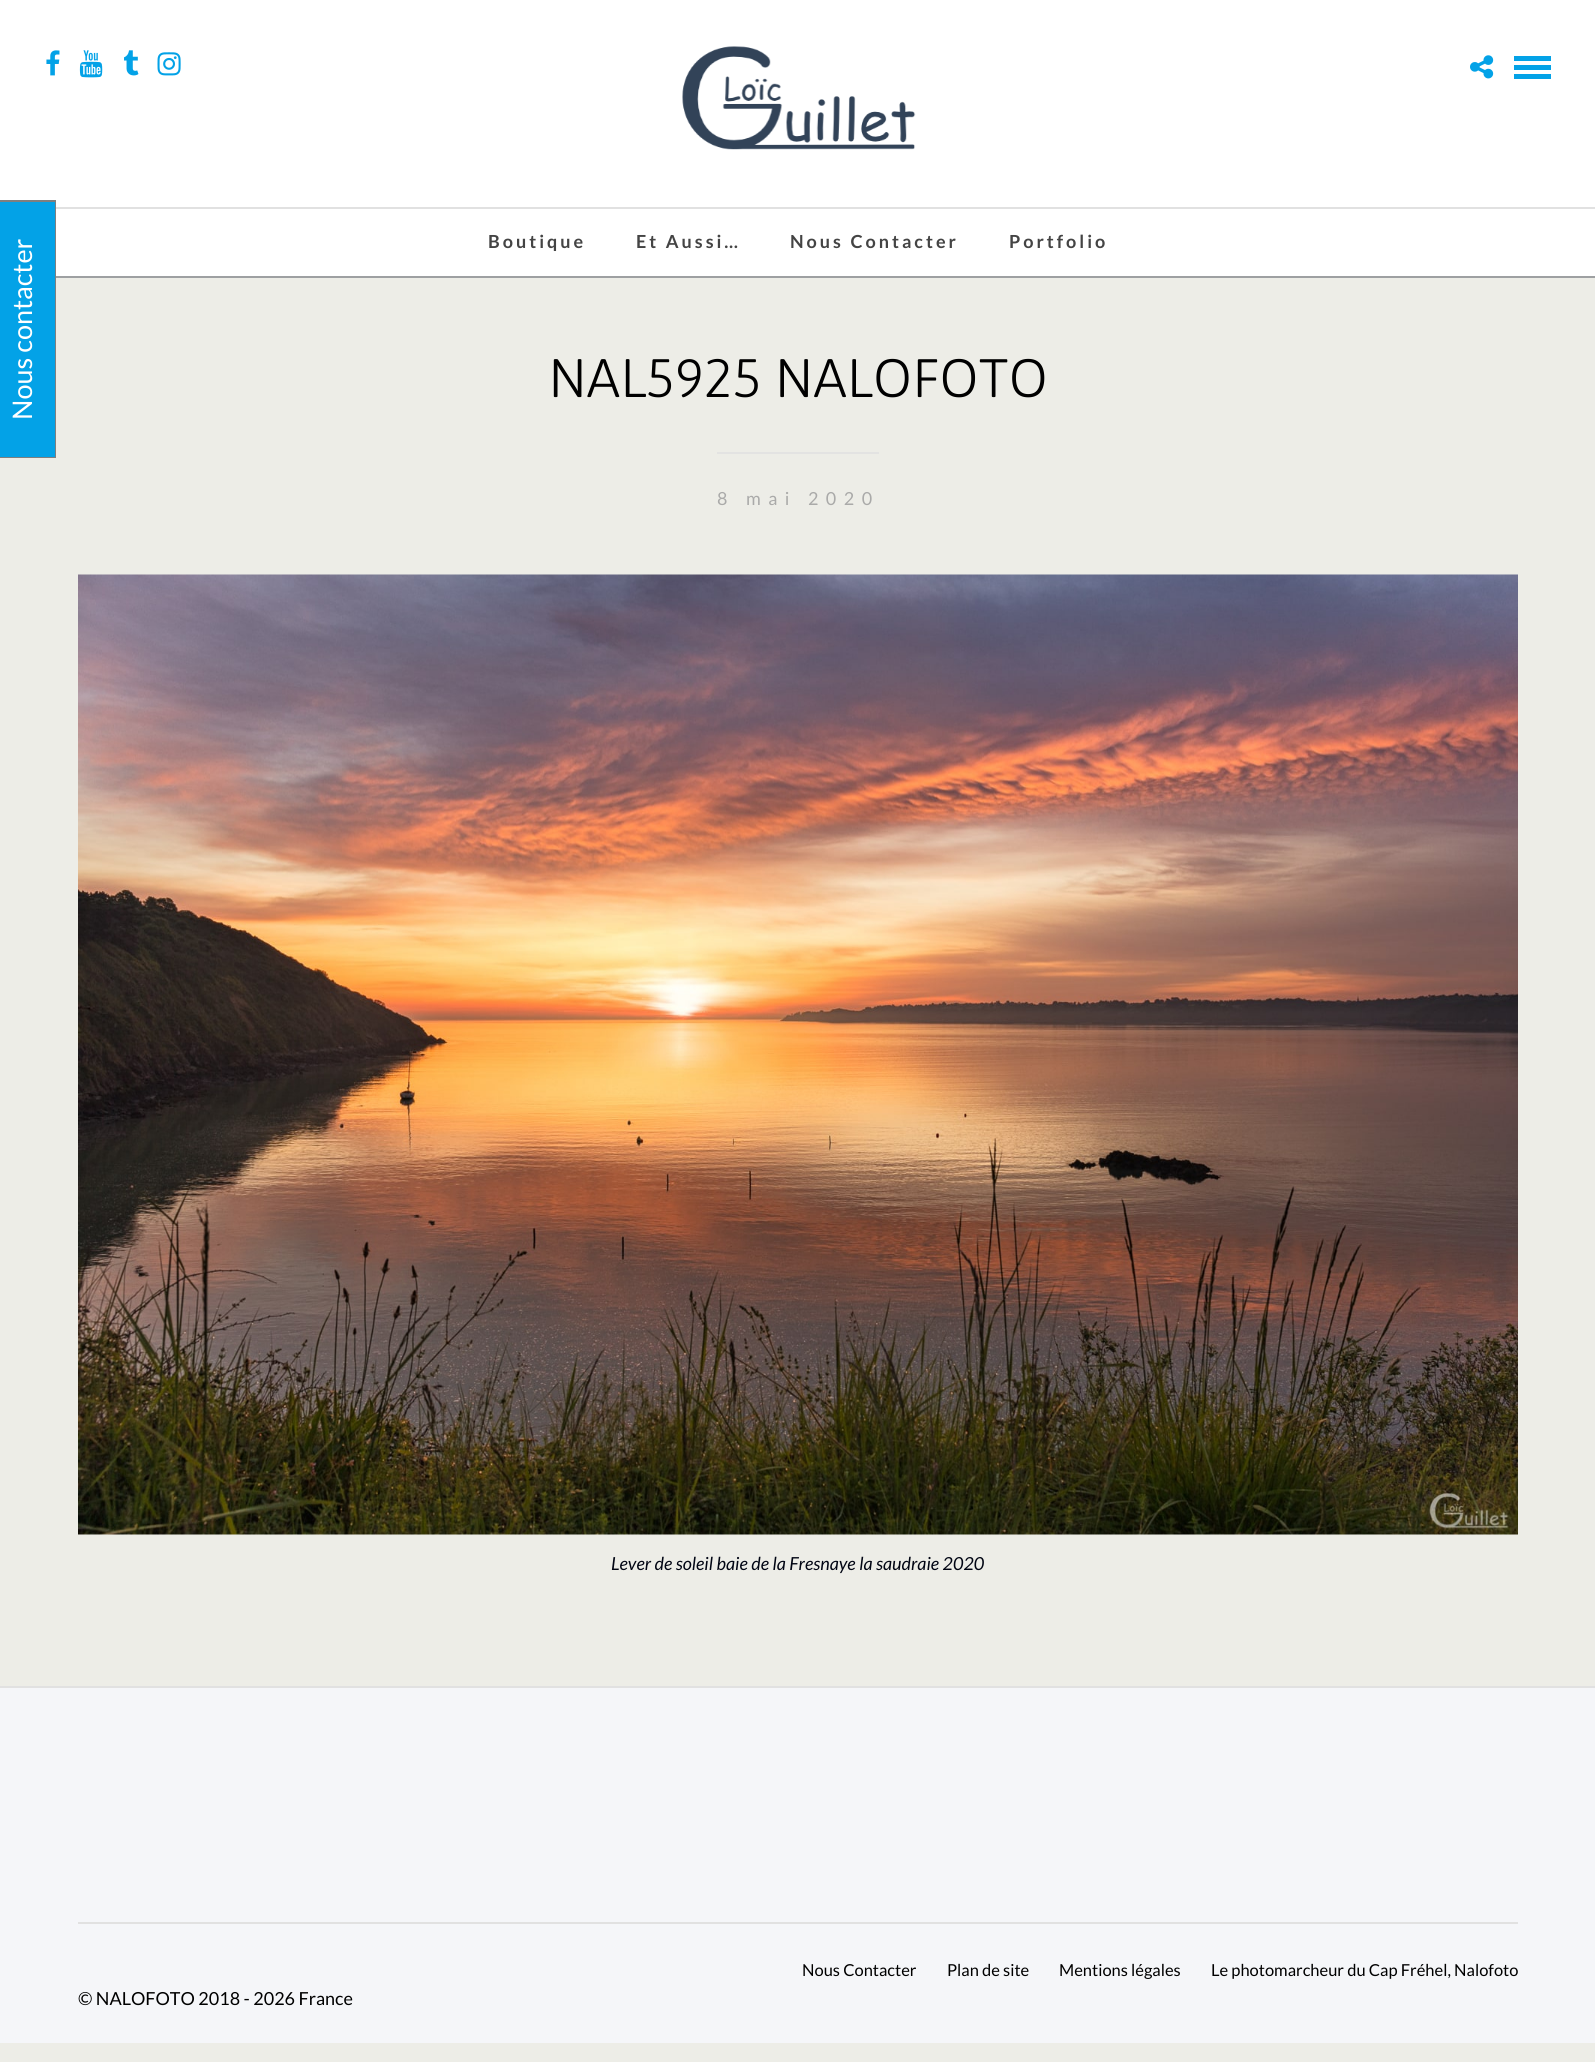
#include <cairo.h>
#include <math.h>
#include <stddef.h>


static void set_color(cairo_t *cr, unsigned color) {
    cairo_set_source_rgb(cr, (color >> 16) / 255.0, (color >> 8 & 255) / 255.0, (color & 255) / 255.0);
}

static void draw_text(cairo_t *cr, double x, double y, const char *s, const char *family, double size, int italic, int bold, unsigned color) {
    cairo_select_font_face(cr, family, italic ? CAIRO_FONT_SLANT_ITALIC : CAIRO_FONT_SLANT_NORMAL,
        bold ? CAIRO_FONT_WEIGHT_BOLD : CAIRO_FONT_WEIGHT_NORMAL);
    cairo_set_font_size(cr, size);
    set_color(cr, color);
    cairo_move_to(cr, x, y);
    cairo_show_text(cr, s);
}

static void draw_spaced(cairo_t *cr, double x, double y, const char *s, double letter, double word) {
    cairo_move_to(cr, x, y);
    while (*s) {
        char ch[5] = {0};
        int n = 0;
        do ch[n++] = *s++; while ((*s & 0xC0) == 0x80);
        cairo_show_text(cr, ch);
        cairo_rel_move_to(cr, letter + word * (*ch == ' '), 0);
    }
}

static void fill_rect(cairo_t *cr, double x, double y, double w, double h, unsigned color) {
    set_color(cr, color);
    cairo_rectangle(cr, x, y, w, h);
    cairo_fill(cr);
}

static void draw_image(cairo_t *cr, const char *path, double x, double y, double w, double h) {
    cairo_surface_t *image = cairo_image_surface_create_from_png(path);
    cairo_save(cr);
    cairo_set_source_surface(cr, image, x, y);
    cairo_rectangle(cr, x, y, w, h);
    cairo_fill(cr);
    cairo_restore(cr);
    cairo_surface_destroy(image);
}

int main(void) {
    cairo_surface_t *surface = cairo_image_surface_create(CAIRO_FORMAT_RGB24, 1595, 2062);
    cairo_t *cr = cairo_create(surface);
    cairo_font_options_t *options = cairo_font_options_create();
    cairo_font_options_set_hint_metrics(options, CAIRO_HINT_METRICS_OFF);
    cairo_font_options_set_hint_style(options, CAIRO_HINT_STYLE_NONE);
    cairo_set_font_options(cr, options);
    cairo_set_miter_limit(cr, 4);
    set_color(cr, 0xEDEDE7);
    cairo_paint(cr);
    fill_rect(cr, 0, 0, 1595, 276, 0xFFFFFF);
    fill_rect(cr, 0, 202, 55, 255, 0x03A2E7);
    fill_rect(cr, 0, 200, 56, 2, 0x7F7F7F);
    fill_rect(cr, 55, 200, 1, 258, 0x7F7F7F);
    fill_rect(cr, 0, 457, 56, 1, 0x7F7F7F);
    cairo_save(cr);
    cairo_translate(cr, 32, 420);
    cairo_rotate(cr, -90 * M_PI / 180);
    draw_text(cr, 0, 0, "Nous contacter", "Lato", 27, 0, 0, 0xFFFFFF);
    cairo_restore(cr);
    fill_rect(cr, 56, 276, 1539, 2, 0x9EA0A2);
    fill_rect(cr, 56, 207, 1539, 2, 0xE1E1E1);
    draw_image(cr, "assets/img1.png", 46, 50, 14, 26);
    draw_image(cr, "assets/img2.png", 79, 50, 24, 28);
    draw_image(cr, "assets/img3.png", 124, 50, 15, 26);
    draw_image(cr, "assets/img4.png", 157, 52, 24, 24);
    draw_image(cr, "assets/img5.png", 682, 46, 234, 104);
    draw_image(cr, "assets/img6.png", 1470, 55, 24, 24);
    fill_rect(cr, 1514, 56, 37, 5, 0x03A2E7);
    fill_rect(cr, 1514, 65, 37, 5, 0x03A2E7);
    fill_rect(cr, 1514, 74, 37, 5, 0x03A2E7);
    cairo_select_font_face(cr, "Lato", CAIRO_FONT_SLANT_NORMAL, CAIRO_FONT_WEIGHT_BOLD);
    cairo_set_font_size(cr, 18);
    set_color(cr, 0x444444);
    draw_spaced(cr, 488, 248, "Boutique", 3, 0);
    draw_spaced(cr, 636, 248, "Et Aussi…", 3, 0);
    draw_spaced(cr, 790, 248, "Nous Contacter", 3, 0);
    draw_spaced(cr, 1009, 248, "Portfolio", 3, 0);
    draw_text(cr, 548, 397, "NAL5925 NALOFOTO", "Asap Light", 54, 0, 0, 0x000000);
    fill_rect(cr, 717, 452, 162, 2, 0xE3E3E2);
    cairo_select_font_face(cr, "Lato", CAIRO_FONT_SLANT_NORMAL, CAIRO_FONT_WEIGHT_NORMAL);
    cairo_set_font_size(cr, 18);
    set_color(cr, 0xAAAAA9);
    draw_spaced(cr, 717, 505, "8 mai 2020", 7.5, 0);
    draw_image(cr, "assets/img7.png", 78, 574, 1440, 961);
    draw_text(cr, 611, 1570, "Lever de soleil baie de la Fresnaye la saudraie 2020", "Lato", 18, 1, 0, 0x010513);
    fill_rect(cr, 0, 1688, 1595, 355, 0xF5F6F9);
    fill_rect(cr, 0, 1686, 1595, 2, 0xE1E1E1);
    fill_rect(cr, 78, 1922, 1440, 2, 0xE1E1E1);
    draw_text(cr, 802, 1976, "Nous Contacter", "Lato", 16.5, 0, 0, 0x000000);
    draw_text(cr, 947, 1976, "Plan de site", "Lato", 16.5, 0, 0, 0x000000);
    draw_text(cr, 1059, 1976, "Mentions légales", "Lato", 16.5, 0, 0, 0x000000);
    draw_text(cr, 1211, 1976, "Le photomarcheur du Cap Fréhel, Nalofoto", "Lato", 16.5, 0, 0, 0x000000);
    draw_text(cr, 78, 2005, "© NALOFOTO 2018 - 2026 France", "Lato", 18, 0, 0, 0x000000);
    cairo_surface_write_to_png(surface, "output.png");
    cairo_font_options_destroy(options);
    cairo_destroy(cr);
    cairo_surface_destroy(surface);
    return 0;
}
